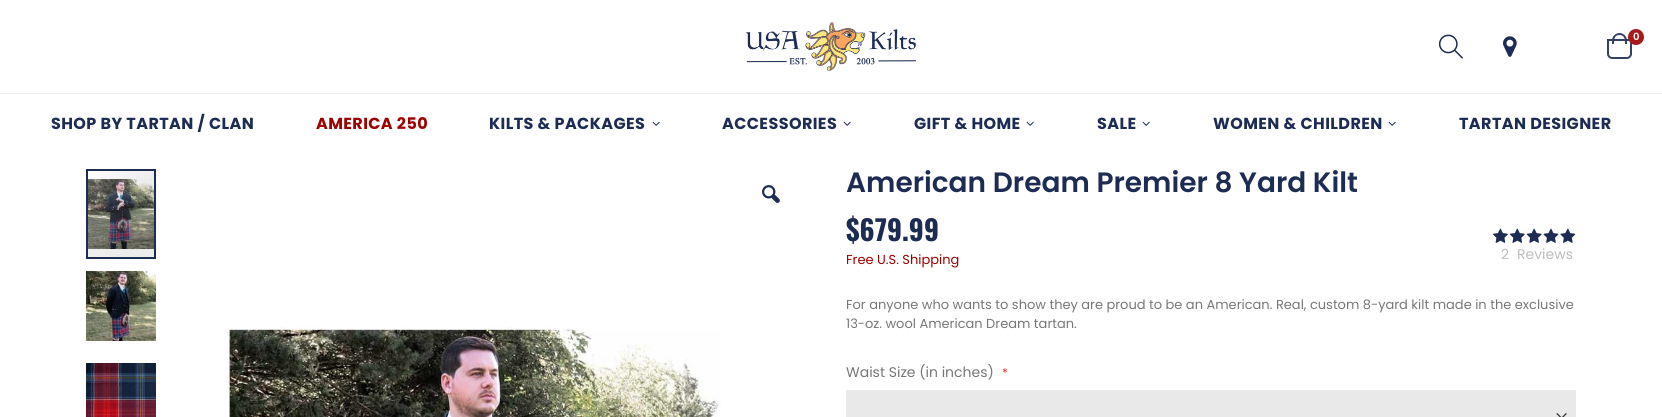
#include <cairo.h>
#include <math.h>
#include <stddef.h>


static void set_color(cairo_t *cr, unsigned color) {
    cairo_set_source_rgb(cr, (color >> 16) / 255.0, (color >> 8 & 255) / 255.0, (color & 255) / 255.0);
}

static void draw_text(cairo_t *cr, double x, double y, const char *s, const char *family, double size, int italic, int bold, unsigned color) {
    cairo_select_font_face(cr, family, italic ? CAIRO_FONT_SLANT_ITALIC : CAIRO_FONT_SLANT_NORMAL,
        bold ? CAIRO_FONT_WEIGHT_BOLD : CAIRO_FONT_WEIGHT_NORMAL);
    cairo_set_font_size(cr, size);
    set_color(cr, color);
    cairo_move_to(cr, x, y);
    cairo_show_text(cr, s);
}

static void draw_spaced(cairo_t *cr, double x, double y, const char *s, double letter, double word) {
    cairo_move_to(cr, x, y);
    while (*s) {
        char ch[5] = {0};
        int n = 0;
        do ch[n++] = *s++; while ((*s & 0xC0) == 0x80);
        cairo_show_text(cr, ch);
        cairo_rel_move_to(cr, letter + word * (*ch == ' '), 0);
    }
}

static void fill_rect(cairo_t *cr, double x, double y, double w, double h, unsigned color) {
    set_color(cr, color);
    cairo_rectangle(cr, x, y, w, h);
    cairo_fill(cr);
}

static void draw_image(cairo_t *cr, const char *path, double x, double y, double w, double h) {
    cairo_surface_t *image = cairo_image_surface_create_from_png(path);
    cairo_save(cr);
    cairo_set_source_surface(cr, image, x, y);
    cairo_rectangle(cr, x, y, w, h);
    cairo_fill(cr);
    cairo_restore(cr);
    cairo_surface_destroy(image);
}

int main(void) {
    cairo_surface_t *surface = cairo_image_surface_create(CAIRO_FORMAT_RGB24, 1662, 417);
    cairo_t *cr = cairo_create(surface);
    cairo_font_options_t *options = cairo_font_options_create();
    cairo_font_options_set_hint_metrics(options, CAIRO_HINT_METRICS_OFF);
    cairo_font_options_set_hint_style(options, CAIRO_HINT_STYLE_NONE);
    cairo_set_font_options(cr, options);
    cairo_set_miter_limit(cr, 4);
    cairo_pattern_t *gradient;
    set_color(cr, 0xFFFFFF);
    cairo_paint(cr);
    draw_image(cr, "assets/img1.png", 746, 22, 170, 49);
    draw_image(cr, "assets/img2.png", 1438, 34, 25, 25);
    draw_image(cr, "assets/img3.png", 1503, 36, 14, 21);
    cairo_new_path(cr);
    cairo_move_to(cr, 1608, 40);
    cairo_line_to(cr, 1631, 40);
    cairo_line_to(cr, 1631, 54);
    cairo_curve_to(cr, 1631, 56, 1629, 58, 1627, 58);
    cairo_line_to(cr, 1612, 58);
    cairo_curve_to(cr, 1610, 58, 1608, 56, 1608, 54);
    cairo_close_path(cr);
    set_color(cr, 0x344164);
    cairo_stroke(cr);
    cairo_set_fill_rule(cr, CAIRO_FILL_RULE_EVEN_ODD);
    cairo_new_path(cr);
    cairo_move_to(cr, 1619.5, 33);
    cairo_curve_to(cr, 1623.5, 33, 1627, 36.5, 1627, 40.5);
    cairo_line_to(cr, 1627, 44);
    cairo_line_to(cr, 1612, 44);
    cairo_line_to(cr, 1612, 40.5);
    cairo_curve_to(cr, 1612, 36.5, 1615.5, 33, 1619.5, 33);
    cairo_close_path(cr);
    cairo_move_to(cr, 1619.5, 35);
    cairo_curve_to(cr, 1625, 35, 1625, 40, 1625, 44);
    cairo_line_to(cr, 1614, 44);
    cairo_curve_to(cr, 1614, 40, 1614, 35, 1619.5, 35);
    cairo_close_path(cr);
    cairo_fill(cr);
    set_color(cr, 0xA71A1A);
    cairo_arc(cr, 1636, 37, 8, 0, 2 * M_PI);
    cairo_fill(cr);
    draw_text(cr, 1633, 40, "0", "Poppins SemiBold", 10, 0, 0, 0xFFFFFF);
    fill_rect(cr, 0, 93, 1662, 1, 0xF0F0F0);
    cairo_select_font_face(cr, "Poppins", CAIRO_FONT_SLANT_NORMAL, CAIRO_FONT_WEIGHT_BOLD);
    cairo_set_font_size(cr, 16);
    set_color(cr, 0x1D2C53);
    draw_spaced(cr, 51, 129, "SHOP BY TARTAN / CLAN", 0.4, 0);
    set_color(cr, 0x9D0000);
    draw_spaced(cr, 316, 129, "AMERICA 250", 0.4, 0);
    set_color(cr, 0x1D2C53);
    draw_spaced(cr, 489, 129, "KILTS & PACKAGES", 0.4, 0);
    draw_image(cr, "assets/img4.png", 652, 121, 8, 5);
    draw_spaced(cr, 722, 129, "ACCESSORIES", 0.4, 0);
    draw_image(cr, "assets/img4.png", 843, 121, 8, 5);
    draw_spaced(cr, 914, 129, "GIFT & HOME", 0.4, 0);
    draw_image(cr, "assets/img4.png", 1026, 121, 8, 5);
    draw_spaced(cr, 1097, 129, "SALE", 0.4, 0);
    draw_image(cr, "assets/img4.png", 1142, 121, 8, 5);
    draw_spaced(cr, 1213, 129, "WOMEN & CHILDREN", 0.4, 0);
    draw_image(cr, "assets/img4.png", 1388, 121, 8, 5);
    draw_spaced(cr, 1459, 129, "TARTAN DESIGNER", 0.4, 0);
    draw_image(cr, "assets/img5.png", 88, 179, 66, 70);
    gradient = cairo_pattern_create_linear(79, 182, 163, 246);
    cairo_pattern_add_color_stop_rgba(gradient, 0, 1, 1, 1, 0.25);
    cairo_pattern_add_color_stop_rgba(gradient, 1, 0.251, 0.251, 0.251, 0.1);
    cairo_set_source(cr, gradient);
    cairo_pattern_destroy(gradient);
    cairo_rectangle(cr, 88, 171, 66, 86);
    cairo_fill(cr);
    cairo_rectangle(cr, 87, 170, 68, 88);
    set_color(cr, 0x1D2C53);
    cairo_stroke(cr);
    draw_image(cr, "assets/img6.png", 86, 271, 70, 70);
    draw_image(cr, "assets/img7.png", 86, 363, 70, 54);
    draw_image(cr, "assets/img8.png", 762, 185, 18, 18);
    draw_image(cr, "assets/img9.png", 227, 327, 494, 90);
    draw_text(cr, 846, 192, "American Dream Premier 8 Yard Kilt", "Poppins SemiBold", 28, 0, 0, 0x1D2C53);
    draw_text(cr, 846, 241, "$679.99", "Oswald", 28, 0, 1, 0x1D2C53);
    draw_text(cr, 846, 264, "Free U.S. Shipping", "Poppins", 13, 0, 0, 0x9D0000);
    draw_image(cr, "assets/img10.png", 1493, 228, 83, 15);
    draw_image(cr, "assets/img11.png", 1493, 228, 83, 15);
    draw_text(cr, 1501, 259, "2", "Poppins", 14, 0, 0, 0xBDBDBD);
    draw_text(cr, 1517, 259, "Reviews", "Poppins", 14, 0, 0, 0xBDBDBD);
    draw_text(cr, 846, 309, "For anyone who wants to show they are proud to be an American. Real, custom 8-yard kilt made in the exclusive", "Poppins", 13, 0, 0, 0x777777);
    draw_text(cr, 846, 328, "13-oz. wool American Dream tartan.", "Poppins", 13, 0, 0, 0x777777);
    draw_text(cr, 846, 377, "Waist Size (in inches)", "Poppins", 14, 0, 0, 0x777777);
    draw_text(cr, 1002, 377, "*", "Poppins", 12, 0, 0, 0xE02B27);
    fill_rect(cr, 846, 390, 730, 27, 0xE9E9E9);
    draw_image(cr, "assets/img12.png", 1556, 413, 11, 4);
    cairo_surface_write_to_png(surface, "output.png");
    cairo_font_options_destroy(options);
    cairo_destroy(cr);
    cairo_surface_destroy(surface);
    return 0;
}
